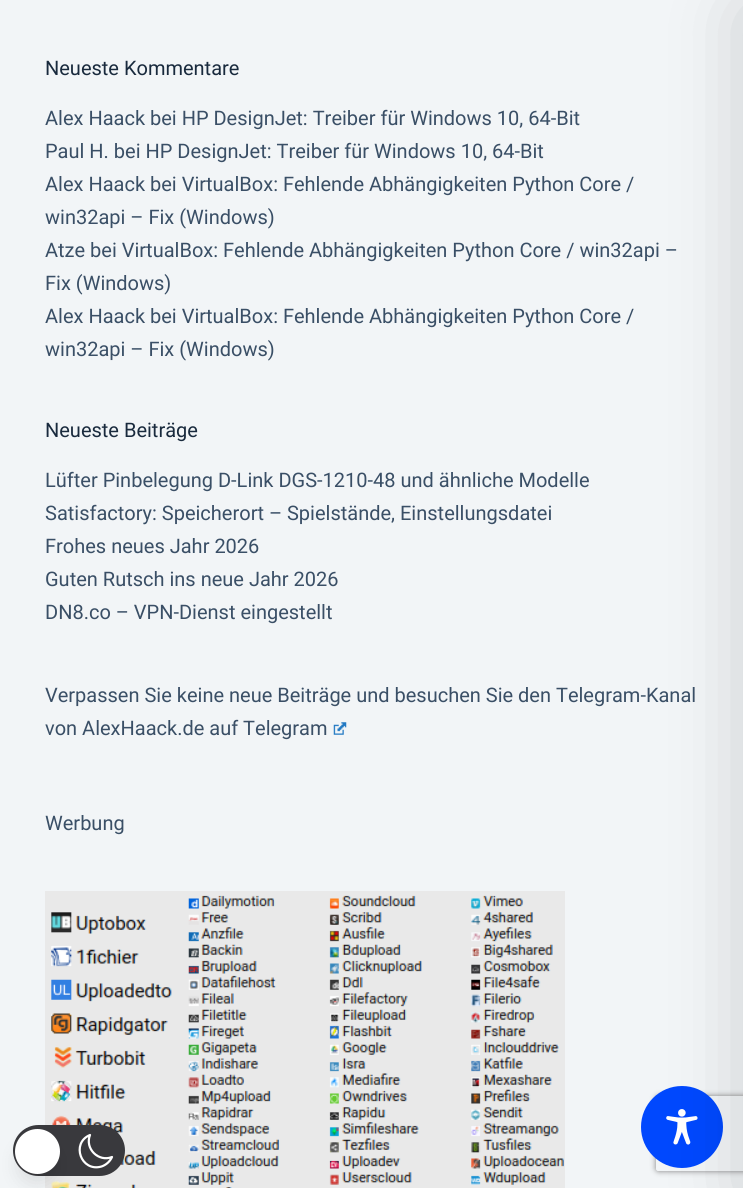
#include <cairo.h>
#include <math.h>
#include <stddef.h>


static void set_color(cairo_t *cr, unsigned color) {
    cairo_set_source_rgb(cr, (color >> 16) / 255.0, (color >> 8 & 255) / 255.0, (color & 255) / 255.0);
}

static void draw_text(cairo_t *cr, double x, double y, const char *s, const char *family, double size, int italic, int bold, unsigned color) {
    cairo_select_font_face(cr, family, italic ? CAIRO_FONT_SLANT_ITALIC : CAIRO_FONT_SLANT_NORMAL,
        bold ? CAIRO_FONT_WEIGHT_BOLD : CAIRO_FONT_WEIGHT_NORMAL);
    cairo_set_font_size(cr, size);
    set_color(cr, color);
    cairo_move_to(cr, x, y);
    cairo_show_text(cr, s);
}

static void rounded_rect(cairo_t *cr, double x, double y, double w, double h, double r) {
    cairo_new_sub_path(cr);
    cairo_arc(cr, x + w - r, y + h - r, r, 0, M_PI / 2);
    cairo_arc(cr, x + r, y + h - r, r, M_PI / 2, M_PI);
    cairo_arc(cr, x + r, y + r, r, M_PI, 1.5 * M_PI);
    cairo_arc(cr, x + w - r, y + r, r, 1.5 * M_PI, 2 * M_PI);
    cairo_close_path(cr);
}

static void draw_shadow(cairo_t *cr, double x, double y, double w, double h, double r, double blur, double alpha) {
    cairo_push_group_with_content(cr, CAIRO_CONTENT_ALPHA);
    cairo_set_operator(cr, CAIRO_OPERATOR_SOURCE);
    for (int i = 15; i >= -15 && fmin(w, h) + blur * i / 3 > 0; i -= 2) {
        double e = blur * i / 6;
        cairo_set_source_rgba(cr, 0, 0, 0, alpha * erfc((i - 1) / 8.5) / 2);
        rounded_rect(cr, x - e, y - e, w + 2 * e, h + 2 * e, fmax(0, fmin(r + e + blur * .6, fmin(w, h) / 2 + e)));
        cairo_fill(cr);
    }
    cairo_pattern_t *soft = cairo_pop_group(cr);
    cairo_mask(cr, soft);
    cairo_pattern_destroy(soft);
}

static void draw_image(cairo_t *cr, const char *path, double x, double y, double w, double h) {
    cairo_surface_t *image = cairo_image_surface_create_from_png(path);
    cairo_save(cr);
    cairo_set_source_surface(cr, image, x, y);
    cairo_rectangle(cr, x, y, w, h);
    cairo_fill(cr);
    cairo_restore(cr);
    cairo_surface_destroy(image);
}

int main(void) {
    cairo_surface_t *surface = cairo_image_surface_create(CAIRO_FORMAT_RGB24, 743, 1188);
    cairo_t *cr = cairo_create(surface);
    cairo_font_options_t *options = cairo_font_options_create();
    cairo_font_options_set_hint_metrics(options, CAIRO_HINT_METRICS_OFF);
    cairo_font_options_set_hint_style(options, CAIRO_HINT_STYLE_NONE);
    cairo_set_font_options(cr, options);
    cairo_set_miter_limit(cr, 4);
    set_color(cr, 0xF2F5F7);
    cairo_paint(cr);
    cairo_save(cr);
    cairo_set_fill_rule(cr, CAIRO_FILL_RULE_EVEN_ODD);
    cairo_new_path(cr);
    cairo_move_to(cr, 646, 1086);
    cairo_line_to(cr, 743, 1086);
    cairo_line_to(cr, 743, 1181);
    cairo_line_to(cr, 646, 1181);
    cairo_close_path(cr);
    cairo_move_to(cr, 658.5, 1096);
    cairo_line_to(cr, 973.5, 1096);
    cairo_curve_to(cr, 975, 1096, 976, 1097, 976, 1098.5);
    cairo_line_to(cr, 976, 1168.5);
    cairo_curve_to(cr, 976, 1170, 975, 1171, 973.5, 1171);
    cairo_line_to(cr, 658.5, 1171);
    cairo_curve_to(cr, 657, 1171, 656, 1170, 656, 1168.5);
    cairo_line_to(cr, 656, 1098.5);
    cairo_curve_to(cr, 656, 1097, 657, 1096, 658.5, 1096);
    cairo_close_path(cr);
    cairo_clip(cr);
    set_color(cr, 0x808080);
    draw_shadow(cr, 656, 1096, 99, 75, 2.5, 3, 1);
    cairo_restore(cr);
    set_color(cr, 0x0048FE);
    cairo_arc(cr, 682, 1127, 41, 0, 2 * M_PI);
    cairo_fill(cr);
    draw_image(cr, "assets/img3.png", 666, 1109, 32, 36);
    set_color(cr, 0x000000);
    draw_shadow(cr, 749, 13, 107, 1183, 0, 37.5, 0.2);
    draw_text(cr, 45, 75, "Neueste Kommentare", "Roboto", 20, 0, 0, 0x192A3D);
    draw_text(cr, 45, 125, "Alex Haack bei HP DesignJet: Treiber für Windows 10, 64-Bit", "Roboto", 20, 0, 0, 0x3A4F66);
    draw_text(cr, 45, 158, "Paul H. bei HP DesignJet: Treiber für Windows 10, 64-Bit", "Roboto", 20, 0, 0, 0x3A4F66);
    draw_text(cr, 45, 191, "Alex Haack bei VirtualBox: Fehlende Abhängigkeiten Python Core /", "Roboto", 20, 0, 0, 0x3A4F66);
    draw_text(cr, 45, 224, "win32api – Fix (Windows)", "Roboto", 20, 0, 0, 0x3A4F66);
    draw_text(cr, 45, 257, "Atze bei VirtualBox: Fehlende Abhängigkeiten Python Core / win32api –", "Roboto", 20, 0, 0, 0x3A4F66);
    draw_text(cr, 45, 290, "Fix (Windows)", "Roboto", 20, 0, 0, 0x3A4F66);
    draw_text(cr, 45, 323, "Alex Haack bei VirtualBox: Fehlende Abhängigkeiten Python Core /", "Roboto", 20, 0, 0, 0x3A4F66);
    draw_text(cr, 45, 356, "win32api – Fix (Windows)", "Roboto", 20, 0, 0, 0x3A4F66);
    draw_text(cr, 45, 437, "Neueste Beiträge", "Roboto", 20, 0, 0, 0x192A3D);
    draw_text(cr, 45, 487, "Lüfter Pinbelegung D-Link DGS-1210-48 und ähnliche Modelle", "Roboto", 20, 0, 0, 0x3A4F66);
    draw_text(cr, 45, 520, "Satisfactory: Speicherort – Spielstände, Einstellungsdatei", "Roboto", 20, 0, 0, 0x3A4F66);
    draw_text(cr, 45, 553, "Frohes neues Jahr 2026", "Roboto", 20, 0, 0, 0x3A4F66);
    draw_text(cr, 45, 586, "Guten Rutsch ins neue Jahr 2026", "Roboto", 20, 0, 0, 0x3A4F66);
    draw_text(cr, 45, 619, "DN8.co – VPN-Dienst eingestellt", "Roboto", 20, 0, 0, 0x3A4F66);
    draw_text(cr, 45, 702, "Verpassen Sie keine neue Beiträge und besuchen Sie den Telegram-Kanal", "Roboto", 20, 0, 0, 0x3A4F66);
    draw_text(cr, 45, 735, "von AlexHaack.de auf Telegram", "Roboto", 20, 0, 0, 0x3A4F66);
    draw_image(cr, "assets/img1.png", 333, 722, 14, 13);
    draw_text(cr, 45, 830, "Werbung", "Roboto", 20, 0, 0, 0x3A4F66);
    draw_image(cr, "assets/img2.png", 45, 891, 520, 297);
    set_color(cr, 0x39393D);
    rounded_rect(cr, 13, 1125, 112, 51, 25.5);
    cairo_fill(cr);
    cairo_new_path(cr);
    cairo_move_to(cr, 112, 1157);
    cairo_curve_to(cr, 98.5, 1162.5, 84.5, 1148.5, 90, 1135);
    cairo_curve_to(cr, 70.5, 1143, 81, 1172.5, 101.5, 1166.5);
    cairo_curve_to(cr, 106, 1165, 110, 1161.5, 112, 1157);
    cairo_close_path(cr);
    set_color(cr, 0xFFFFFF);
    cairo_set_line_width(cr, 2.2);
    cairo_set_line_cap(cr, CAIRO_LINE_CAP_ROUND);
    cairo_set_line_join(cr, CAIRO_LINE_JOIN_ROUND);
    cairo_stroke(cr);
    set_color(cr, 0x000000);
    draw_shadow(cr, 19, 1145, 37, 38, 18.5, 9.5, 0.1);
    set_color(cr, 0xFFFFFF);
    cairo_arc(cr, 37.5, 1151.5, 22.5, 0, 2 * M_PI);
    cairo_fill(cr);
    cairo_surface_write_to_png(surface, "output.png");
    cairo_font_options_destroy(options);
    cairo_destroy(cr);
    cairo_surface_destroy(surface);
    return 0;
}
